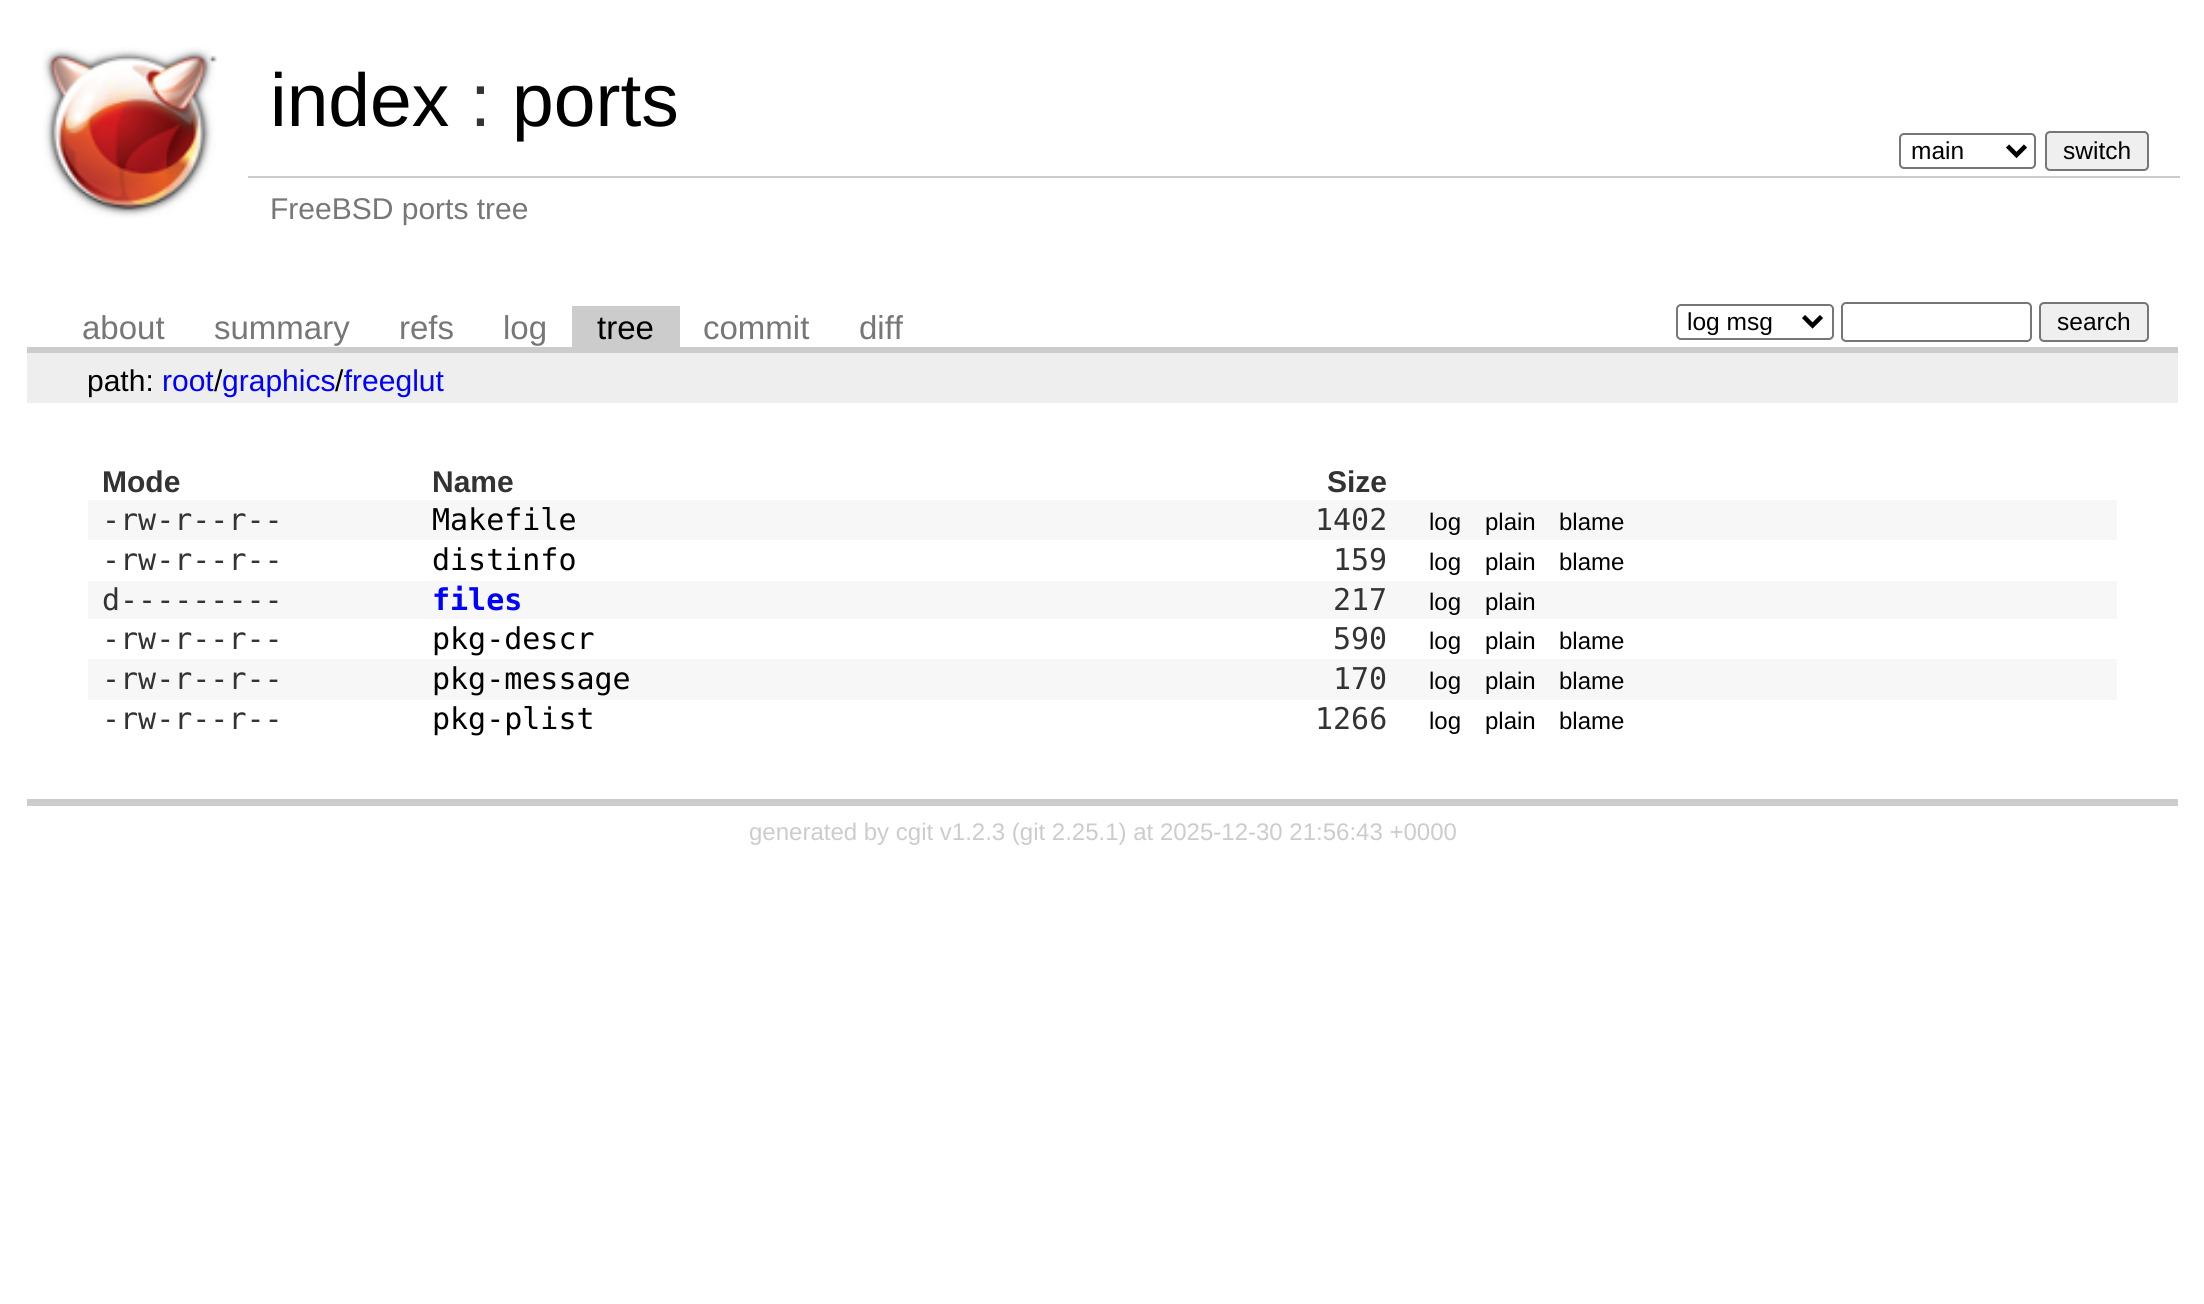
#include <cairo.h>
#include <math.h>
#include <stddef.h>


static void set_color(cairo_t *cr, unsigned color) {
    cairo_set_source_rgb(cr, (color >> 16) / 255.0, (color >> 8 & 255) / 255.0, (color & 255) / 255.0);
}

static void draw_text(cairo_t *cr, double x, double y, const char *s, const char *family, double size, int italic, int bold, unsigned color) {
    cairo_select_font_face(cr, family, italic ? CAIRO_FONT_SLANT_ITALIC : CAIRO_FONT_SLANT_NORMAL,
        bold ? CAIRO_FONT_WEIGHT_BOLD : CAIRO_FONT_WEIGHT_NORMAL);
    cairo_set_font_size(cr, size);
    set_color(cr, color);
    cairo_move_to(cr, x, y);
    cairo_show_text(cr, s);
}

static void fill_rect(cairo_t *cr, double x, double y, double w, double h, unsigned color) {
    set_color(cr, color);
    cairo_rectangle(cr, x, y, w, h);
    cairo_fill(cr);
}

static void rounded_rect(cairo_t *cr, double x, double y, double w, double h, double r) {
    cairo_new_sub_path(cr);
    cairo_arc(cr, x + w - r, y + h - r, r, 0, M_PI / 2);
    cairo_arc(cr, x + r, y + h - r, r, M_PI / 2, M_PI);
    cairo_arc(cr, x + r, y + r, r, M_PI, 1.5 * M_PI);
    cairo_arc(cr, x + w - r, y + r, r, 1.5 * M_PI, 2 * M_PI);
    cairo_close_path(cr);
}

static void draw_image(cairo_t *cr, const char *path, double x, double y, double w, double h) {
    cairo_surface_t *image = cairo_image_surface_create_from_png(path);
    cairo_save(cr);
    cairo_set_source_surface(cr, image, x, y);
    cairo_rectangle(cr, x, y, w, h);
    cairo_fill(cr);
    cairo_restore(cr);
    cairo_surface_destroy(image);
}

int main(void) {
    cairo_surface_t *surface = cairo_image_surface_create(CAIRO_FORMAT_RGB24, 2204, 1304);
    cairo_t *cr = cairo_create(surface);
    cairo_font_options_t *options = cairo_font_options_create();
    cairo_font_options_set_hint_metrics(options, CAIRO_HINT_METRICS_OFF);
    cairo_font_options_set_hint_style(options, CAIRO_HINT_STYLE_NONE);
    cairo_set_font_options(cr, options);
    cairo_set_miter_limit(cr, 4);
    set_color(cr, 0xFFFFFF);
    cairo_paint(cr);
    draw_image(cr, "assets/img1.png", 42, 47, 175, 171);
    draw_text(cr, 270, 126, "index", "Liberation Sans", 75, 0, 0, 0x000000);
    draw_text(cr, 470, 126, ":", "Liberation Sans", 75, 0, 0, 0x333333);
    draw_text(cr, 512, 126, "ports", "Liberation Sans", 75, 0, 0, 0x000000);
    rounded_rect(cr, 1900, 134, 135, 34, 4);
    set_color(cr, 0x767676);
    cairo_stroke(cr);
    cairo_new_path(cr);
    cairo_move_to(cr, 2007.5, 146);
    cairo_line_to(cr, 2016.5, 155);
    cairo_line_to(cr, 2025.5, 146);
    set_color(cr, 0x000000);
    cairo_set_line_width(cr, 4.5);
    cairo_stroke(cr);
    draw_text(cr, 1911, 159, "main", "Liberation Sans", 24.5, 0, 0, 0x000000);
    set_color(cr, 0xEFEFEF);
    rounded_rect(cr, 2046, 132, 102, 38, 4);
    cairo_fill_preserve(cr);
    set_color(cr, 0x767676);
    cairo_set_line_width(cr, 2);
    cairo_stroke(cr);
    draw_text(cr, 2063, 159, "switch", "Liberation Sans", 24.5, 0, 0, 0x000000);
    fill_rect(cr, 248, 176, 1932, 2, 0xCCCCCC);
    draw_text(cr, 270, 219, "FreeBSD ports tree", "Liberation Sans", 30, 0, 0, 0x777777);
    fill_rect(cr, 27, 347, 2151, 6, 0xCCCCCC);
    draw_text(cr, 82, 339, "about", "Liberation Sans", 33, 0, 0, 0x777777);
    draw_text(cr, 214, 339, "summary", "Liberation Sans", 33, 0, 0, 0x777777);
    draw_text(cr, 399, 339, "refs", "Liberation Sans", 33, 0, 0, 0x777777);
    draw_text(cr, 503, 339, "log", "Liberation Sans", 33, 0, 0, 0x777777);
    fill_rect(cr, 572, 306, 108, 41, 0xCCCCCC);
    draw_text(cr, 597, 339, "tree", "Liberation Sans", 33, 0, 0, 0x000000);
    draw_text(cr, 703, 339, "commit", "Liberation Sans", 33, 0, 0, 0x777777);
    draw_text(cr, 859, 339, "diff", "Liberation Sans", 33, 0, 0, 0x777777);
    rounded_rect(cr, 1677, 305, 156, 34, 4);
    set_color(cr, 0x767676);
    cairo_stroke(cr);
    cairo_new_path(cr);
    cairo_move_to(cr, 1803.5, 316.5);
    cairo_line_to(cr, 1812.5, 325.5);
    cairo_line_to(cr, 1821.5, 316.5);
    set_color(cr, 0x000000);
    cairo_set_line_width(cr, 4.5);
    cairo_stroke(cr);
    draw_text(cr, 1687, 330, "log msg", "Liberation Sans", 24.5, 0, 0, 0x000000);
    rounded_rect(cr, 1842, 303, 189, 38, 4);
    set_color(cr, 0x767676);
    cairo_set_line_width(cr, 2);
    cairo_stroke(cr);
    set_color(cr, 0xEFEFEF);
    rounded_rect(cr, 2040, 303, 108, 38, 4);
    cairo_fill_preserve(cr);
    set_color(cr, 0x767676);
    cairo_stroke(cr);
    draw_text(cr, 2057, 330, "search", "Liberation Sans", 24.5, 0, 0, 0x000000);
    fill_rect(cr, 27, 353, 2151, 50, 0xEEEEEE);
    draw_text(cr, 87, 391, "path:", "Liberation Sans", 30, 0, 0, 0x000000);
    draw_text(cr, 162, 391, "root graphics freeglut", "Liberation Sans", 30, 0, 0, 0x0000FF);
    draw_text(cr, 214, 391, "/", "Liberation Sans", 30, 0, 0, 0x000000);
    draw_text(cr, 335, 391, "/", "Liberation Sans", 30, 0, 0, 0x000000);
    fill_rect(cr, 27, 799, 2151, 7, 0xCCCCCC);
    draw_text(cr, 102, 492, "Mode", "Liberation Sans", 30, 0, 1, 0x333333);
    draw_text(cr, 432, 492, "Name", "Liberation Sans", 30, 0, 1, 0x333333);
    draw_text(cr, 1327, 492, "Size", "Liberation Sans", 30, 0, 1, 0x333333);
    fill_rect(cr, 88, 500, 2029, 40, 0xF7F7F7);
    draw_text(cr, 102, 530, "-rw-r--r--", "DejaVu Sans Mono", 30, 0, 0, 0x333333);
    draw_text(cr, 432, 530, "Makefile", "DejaVu Sans Mono", 30, 0, 0, 0x000000);
    draw_text(cr, 1315, 530, "1402", "DejaVu Sans Mono", 30, 0, 0, 0x333333);
    draw_text(cr, 1429, 530, "log", "Liberation Sans", 24, 0, 0, 0x000000);
    draw_text(cr, 1485, 530, "plain", "Liberation Sans", 24, 0, 0, 0x000000);
    draw_text(cr, 1559, 530, "blame", "Liberation Sans", 24, 0, 0, 0x000000);
    draw_text(cr, 102, 570, "-rw-r--r--", "DejaVu Sans Mono", 30, 0, 0, 0x333333);
    draw_text(cr, 432, 570, "distinfo", "DejaVu Sans Mono", 30, 0, 0, 0x000000);
    draw_text(cr, 1333, 570, "159", "DejaVu Sans Mono", 30, 0, 0, 0x333333);
    draw_text(cr, 1429, 570, "log", "Liberation Sans", 24, 0, 0, 0x000000);
    draw_text(cr, 1485, 570, "plain", "Liberation Sans", 24, 0, 0, 0x000000);
    draw_text(cr, 1559, 570, "blame", "Liberation Sans", 24, 0, 0, 0x000000);
    fill_rect(cr, 88, 581, 2029, 38, 0xF7F7F7);
    draw_text(cr, 102, 610, "d---------", "DejaVu Sans Mono", 30, 0, 0, 0x333333);
    draw_text(cr, 432, 610, "files", "DejaVu Sans Mono", 30, 0, 1, 0x0000FF);
    draw_text(cr, 1333, 610, "217", "DejaVu Sans Mono", 30, 0, 0, 0x333333);
    draw_text(cr, 1429, 610, "log", "Liberation Sans", 24, 0, 0, 0x000000);
    draw_text(cr, 1485, 610, "plain", "Liberation Sans", 24, 0, 0, 0x000000);
    draw_text(cr, 102, 649, "-rw-r--r--", "DejaVu Sans Mono", 30, 0, 0, 0x333333);
    draw_text(cr, 432, 649, "pkg-descr", "DejaVu Sans Mono", 30, 0, 0, 0x000000);
    draw_text(cr, 1333, 649, "590", "DejaVu Sans Mono", 30, 0, 0, 0x333333);
    draw_text(cr, 1429, 649, "log", "Liberation Sans", 24, 0, 0, 0x000000);
    draw_text(cr, 1485, 649, "plain", "Liberation Sans", 24, 0, 0, 0x000000);
    draw_text(cr, 1559, 649, "blame", "Liberation Sans", 24, 0, 0, 0x000000);
    fill_rect(cr, 88, 659, 2029, 41, 0xF7F7F7);
    draw_text(cr, 102, 689, "-rw-r--r--", "DejaVu Sans Mono", 30, 0, 0, 0x333333);
    draw_text(cr, 432, 689, "pkg-message", "DejaVu Sans Mono", 30, 0, 0, 0x000000);
    draw_text(cr, 1333, 689, "170", "DejaVu Sans Mono", 30, 0, 0, 0x333333);
    draw_text(cr, 1429, 689, "log", "Liberation Sans", 24, 0, 0, 0x000000);
    draw_text(cr, 1485, 689, "plain", "Liberation Sans", 24, 0, 0, 0x000000);
    draw_text(cr, 1559, 689, "blame", "Liberation Sans", 24, 0, 0, 0x000000);
    draw_text(cr, 102, 729, "-rw-r--r--", "DejaVu Sans Mono", 30, 0, 0, 0x333333);
    draw_text(cr, 432, 729, "pkg-plist", "DejaVu Sans Mono", 30, 0, 0, 0x000000);
    draw_text(cr, 1315, 729, "1266", "DejaVu Sans Mono", 30, 0, 0, 0x333333);
    draw_text(cr, 1429, 729, "log", "Liberation Sans", 24, 0, 0, 0x000000);
    draw_text(cr, 1485, 729, "plain", "Liberation Sans", 24, 0, 0, 0x000000);
    draw_text(cr, 1559, 729, "blame", "Liberation Sans", 24, 0, 0, 0x000000);
    draw_text(cr, 749, 840, "generated by cgit v1.2.3 (git 2.25.1) at 2025-12-30 21:56:43 +0000", "Liberation Sans", 24, 0, 0, 0xCCCCCC);
    cairo_surface_write_to_png(surface, "output.png");
    cairo_font_options_destroy(options);
    cairo_destroy(cr);
    cairo_surface_destroy(surface);
    return 0;
}
